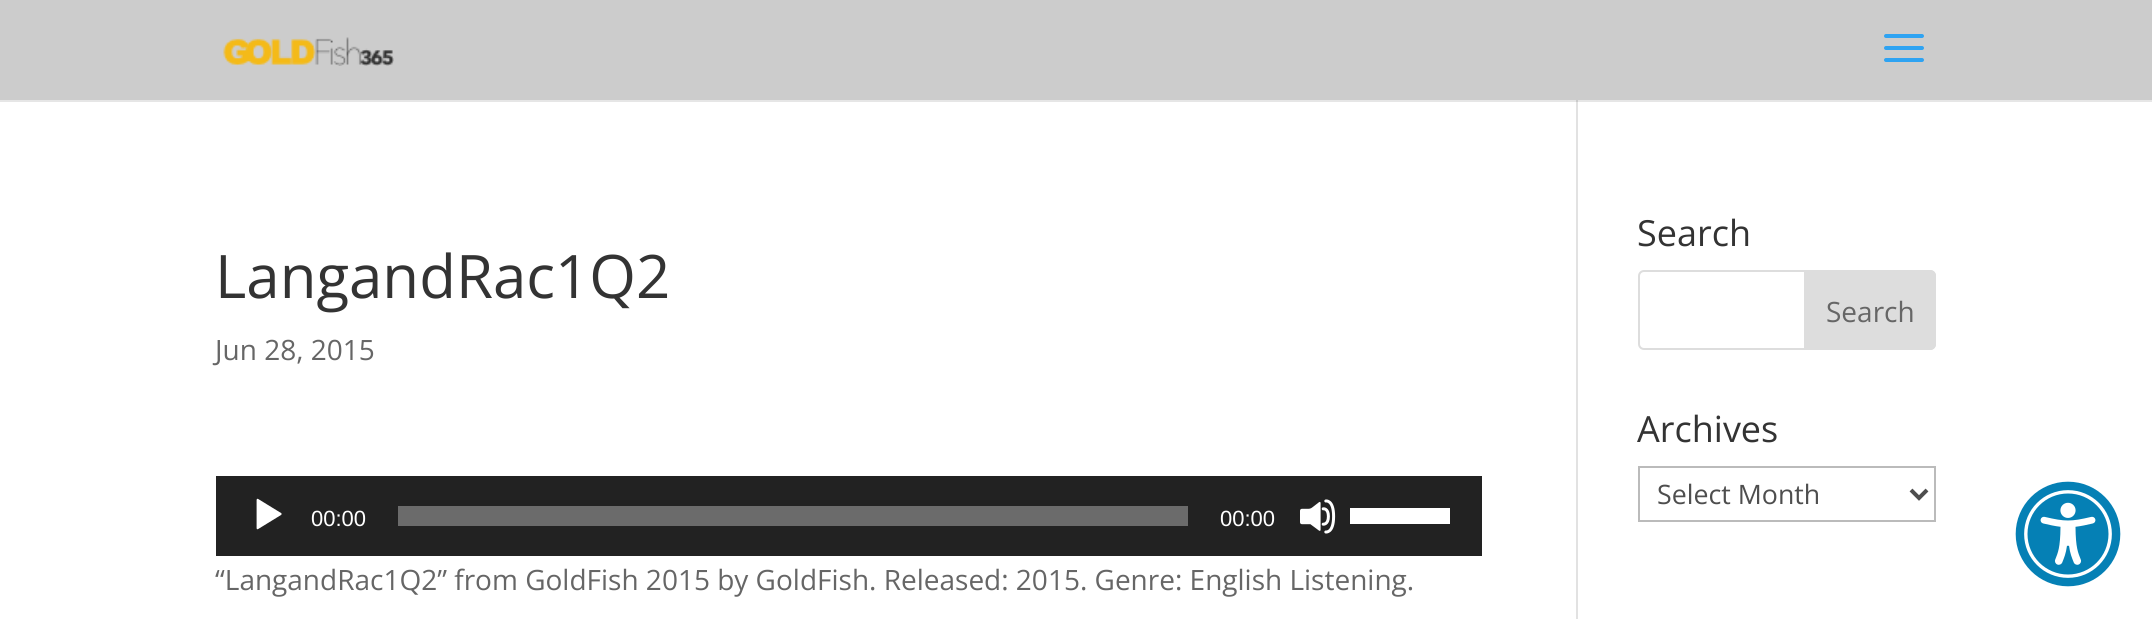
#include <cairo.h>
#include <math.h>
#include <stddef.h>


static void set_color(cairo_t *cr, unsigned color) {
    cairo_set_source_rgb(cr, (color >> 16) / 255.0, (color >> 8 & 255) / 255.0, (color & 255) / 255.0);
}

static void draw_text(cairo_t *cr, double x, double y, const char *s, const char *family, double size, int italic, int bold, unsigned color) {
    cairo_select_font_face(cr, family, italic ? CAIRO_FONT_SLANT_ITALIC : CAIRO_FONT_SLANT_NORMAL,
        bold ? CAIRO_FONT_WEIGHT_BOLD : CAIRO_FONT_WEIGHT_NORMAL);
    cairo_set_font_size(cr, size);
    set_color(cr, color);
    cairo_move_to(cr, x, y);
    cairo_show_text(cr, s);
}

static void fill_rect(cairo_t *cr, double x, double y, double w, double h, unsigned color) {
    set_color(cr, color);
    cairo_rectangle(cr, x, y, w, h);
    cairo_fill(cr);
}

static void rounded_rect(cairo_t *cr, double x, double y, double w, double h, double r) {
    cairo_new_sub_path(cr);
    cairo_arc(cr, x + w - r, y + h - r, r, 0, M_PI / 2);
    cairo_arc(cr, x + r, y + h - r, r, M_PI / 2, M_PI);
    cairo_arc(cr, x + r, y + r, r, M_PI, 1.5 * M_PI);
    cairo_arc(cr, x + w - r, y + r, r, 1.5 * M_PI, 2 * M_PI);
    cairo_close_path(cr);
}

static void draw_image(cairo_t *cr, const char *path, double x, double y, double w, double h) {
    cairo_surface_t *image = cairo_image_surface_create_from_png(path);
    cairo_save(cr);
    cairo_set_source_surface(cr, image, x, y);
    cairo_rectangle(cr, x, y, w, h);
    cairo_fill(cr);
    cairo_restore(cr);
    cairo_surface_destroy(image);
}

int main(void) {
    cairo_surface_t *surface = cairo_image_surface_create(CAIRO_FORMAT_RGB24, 2152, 619);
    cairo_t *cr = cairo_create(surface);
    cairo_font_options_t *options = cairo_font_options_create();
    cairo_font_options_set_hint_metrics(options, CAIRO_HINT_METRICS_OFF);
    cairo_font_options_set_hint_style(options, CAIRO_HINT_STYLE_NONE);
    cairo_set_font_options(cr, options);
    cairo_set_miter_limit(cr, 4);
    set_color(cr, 0xFFFFFF);
    cairo_paint(cr);
    fill_rect(cr, 0, 100, 2152, 2, 0xE6E6E6);
    fill_rect(cr, 1576, 98, 2, 521, 0xE2E2E2);
    fill_rect(cr, 0, 0, 2152, 100, 0xCCCCCC);
    draw_image(cr, "assets/img1.png", 223, 37, 171, 29);
    draw_image(cr, "assets/img2.png", 1884, 34, 40, 28);
    fill_rect(cr, 1576, 100, 2, 2, 0xCBCBCB);
    draw_text(cr, 215, 298, "LangandRac1Q2", "Open Sans", 60, 0, 0, 0x333333);
    draw_text(cr, 215, 360, "Jun 28, 2015", "Open Sans", 28, 0, 0, 0x666666);
    fill_rect(cr, 216, 476, 1266, 80, 0x222222);
    draw_image(cr, "assets/img3.png", 256, 498, 26, 32);
    draw_text(cr, 311, 526, "00:00", "Liberation Sans", 22, 0, 0, 0xFFFFFF);
    fill_rect(cr, 398, 506, 790, 20, 0x6B6B6B);
    draw_text(cr, 1220, 526, "00:00", "Liberation Sans", 22, 0, 0, 0xFFFFFF);
    draw_image(cr, "assets/img4.png", 1300, 499, 36, 35);
    fill_rect(cr, 1350, 508, 100, 16, 0xFFFFFF);
    draw_text(cr, 215, 590, "“LangandRac1Q2” from GoldFish 2015 by GoldFish. Released: 2015. Genre: English Listening.", "Open Sans", 28, 0, 0, 0x666666);
    draw_text(cr, 1637, 246, "Search", "Open Sans", 36, 0, 0, 0x333333);
    rounded_rect(cr, 1639, 271, 296, 78, 5);
    set_color(cr, 0xDDDDDD);
    cairo_stroke(cr);
    cairo_new_path(cr);
    cairo_move_to(cr, 1805, 271);
    cairo_line_to(cr, 1930, 271);
    cairo_curve_to(cr, 1933, 271, 1935, 273, 1935, 276);
    cairo_line_to(cr, 1935, 344);
    cairo_curve_to(cr, 1935, 347, 1933, 349, 1930, 349);
    cairo_line_to(cr, 1805, 349);
    cairo_close_path(cr);
    cairo_fill_preserve(cr);
    cairo_stroke(cr);
    draw_text(cr, 1826, 322, "Search", "Open Sans", 28, 0, 0, 0x666666);
    draw_text(cr, 1637, 442, "Archives", "Open Sans", 36, 0, 0, 0x333333);
    cairo_rectangle(cr, 1639, 467, 296, 54);
    set_color(cr, 0xBBBBBB);
    cairo_stroke(cr);
    cairo_new_path(cr);
    cairo_move_to(cr, 1911, 490);
    cairo_line_to(cr, 1919, 498);
    cairo_line_to(cr, 1927, 490);
    set_color(cr, 0x4E4E4E);
    cairo_set_line_width(cr, 4);
    cairo_stroke(cr);
    draw_text(cr, 1657, 504, "Select Month", "Open Sans", 26.75, 0, 0, 0x4E4E4E);
    draw_image(cr, "assets/img5.png", 2015, 481, 106, 106);
    cairo_surface_write_to_png(surface, "output.png");
    cairo_font_options_destroy(options);
    cairo_destroy(cr);
    cairo_surface_destroy(surface);
    return 0;
}
